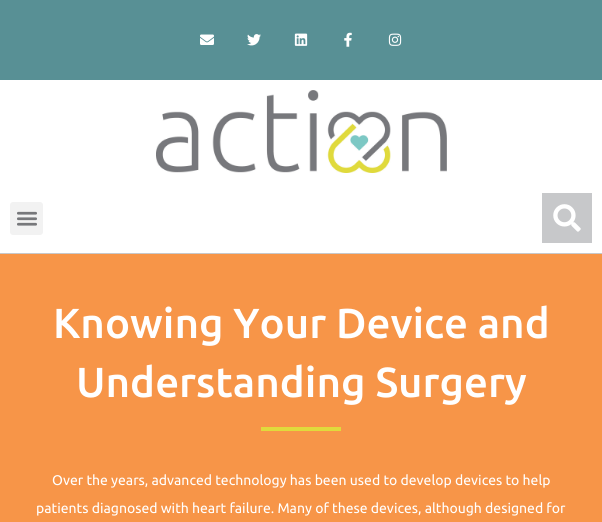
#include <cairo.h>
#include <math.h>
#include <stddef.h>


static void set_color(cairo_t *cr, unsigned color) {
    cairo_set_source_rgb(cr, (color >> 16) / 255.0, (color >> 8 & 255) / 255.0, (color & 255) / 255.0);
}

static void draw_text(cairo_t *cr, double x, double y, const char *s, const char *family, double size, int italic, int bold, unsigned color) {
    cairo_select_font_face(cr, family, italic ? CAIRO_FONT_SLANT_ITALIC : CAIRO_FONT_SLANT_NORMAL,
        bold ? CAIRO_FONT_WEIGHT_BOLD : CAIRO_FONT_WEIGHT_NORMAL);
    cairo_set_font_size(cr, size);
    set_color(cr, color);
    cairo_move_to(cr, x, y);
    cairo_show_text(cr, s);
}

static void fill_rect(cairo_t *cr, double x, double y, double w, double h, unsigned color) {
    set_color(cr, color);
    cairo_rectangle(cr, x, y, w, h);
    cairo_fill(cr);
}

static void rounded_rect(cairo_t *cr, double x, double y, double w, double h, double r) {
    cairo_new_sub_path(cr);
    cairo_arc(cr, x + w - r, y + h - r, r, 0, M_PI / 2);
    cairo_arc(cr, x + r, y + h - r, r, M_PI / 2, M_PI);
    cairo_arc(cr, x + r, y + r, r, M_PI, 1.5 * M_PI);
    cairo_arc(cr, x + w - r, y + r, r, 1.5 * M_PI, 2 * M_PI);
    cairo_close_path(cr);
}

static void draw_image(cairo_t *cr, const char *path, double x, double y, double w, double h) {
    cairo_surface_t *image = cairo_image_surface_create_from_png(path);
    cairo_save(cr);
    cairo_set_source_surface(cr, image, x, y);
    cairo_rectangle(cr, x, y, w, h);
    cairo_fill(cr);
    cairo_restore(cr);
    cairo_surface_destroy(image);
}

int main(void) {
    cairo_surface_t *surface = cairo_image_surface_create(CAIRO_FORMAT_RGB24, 602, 522);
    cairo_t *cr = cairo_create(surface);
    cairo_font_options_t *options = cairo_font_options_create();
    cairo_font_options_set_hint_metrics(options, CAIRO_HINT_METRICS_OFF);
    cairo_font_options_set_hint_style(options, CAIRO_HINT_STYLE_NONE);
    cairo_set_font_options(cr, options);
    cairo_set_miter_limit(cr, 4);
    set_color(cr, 0xFFFFFF);
    cairo_paint(cr);
    fill_rect(cr, 0, 0, 602, 80, 0x589095);
    draw_image(cr, "assets/img1.png", 200, 34, 14, 11);
    draw_image(cr, "assets/img2.png", 247, 34, 14, 12);
    draw_image(cr, "assets/img3.png", 294, 33, 14, 13);
    draw_image(cr, "assets/img4.png", 344, 32, 8, 15);
    draw_image(cr, "assets/img5.png", 388, 33, 14, 13);
    fill_rect(cr, 0, 253, 602, 1, 0xC7C8CA);
    draw_image(cr, "assets/img6.png", 156, 90, 291, 83);
    set_color(cr, 0xF2F2F2);
    rounded_rect(cr, 10, 202, 33, 33, 3);
    cairo_fill(cr);
    draw_image(cr, "assets/img7.png", 17, 211, 20, 15);
    fill_rect(cr, 542, 193, 50, 50, 0xC7C8CA);
    draw_image(cr, "assets/img8.png", 553, 204, 28, 28);
    fill_rect(cr, 0, 254, 602, 268, 0xF79548);
    draw_text(cr, 53, 338, "Knowing Your Device and", "Ubuntu Medium", 42, 0, 0, 0xFFFFFF);
    draw_text(cr, 76, 397, "Understanding Surgery", "Ubuntu Medium", 42, 0, 0, 0xFFFFFF);
    fill_rect(cr, 261, 427, 80, 4, 0xE0DA3C);
    draw_text(cr, 52, 485, "Over the years, advanced technology has been used to develop devices to help", "Ubuntu", 14, 0, 0, 0xFFFFFF);
    draw_text(cr, 36, 513, "patients diagnosed with heart failure. Many of these devices, although designed for", "Ubuntu", 14, 0, 0, 0xFFFFFF);
    cairo_surface_write_to_png(surface, "output.png");
    cairo_font_options_destroy(options);
    cairo_destroy(cr);
    cairo_surface_destroy(surface);
    return 0;
}
